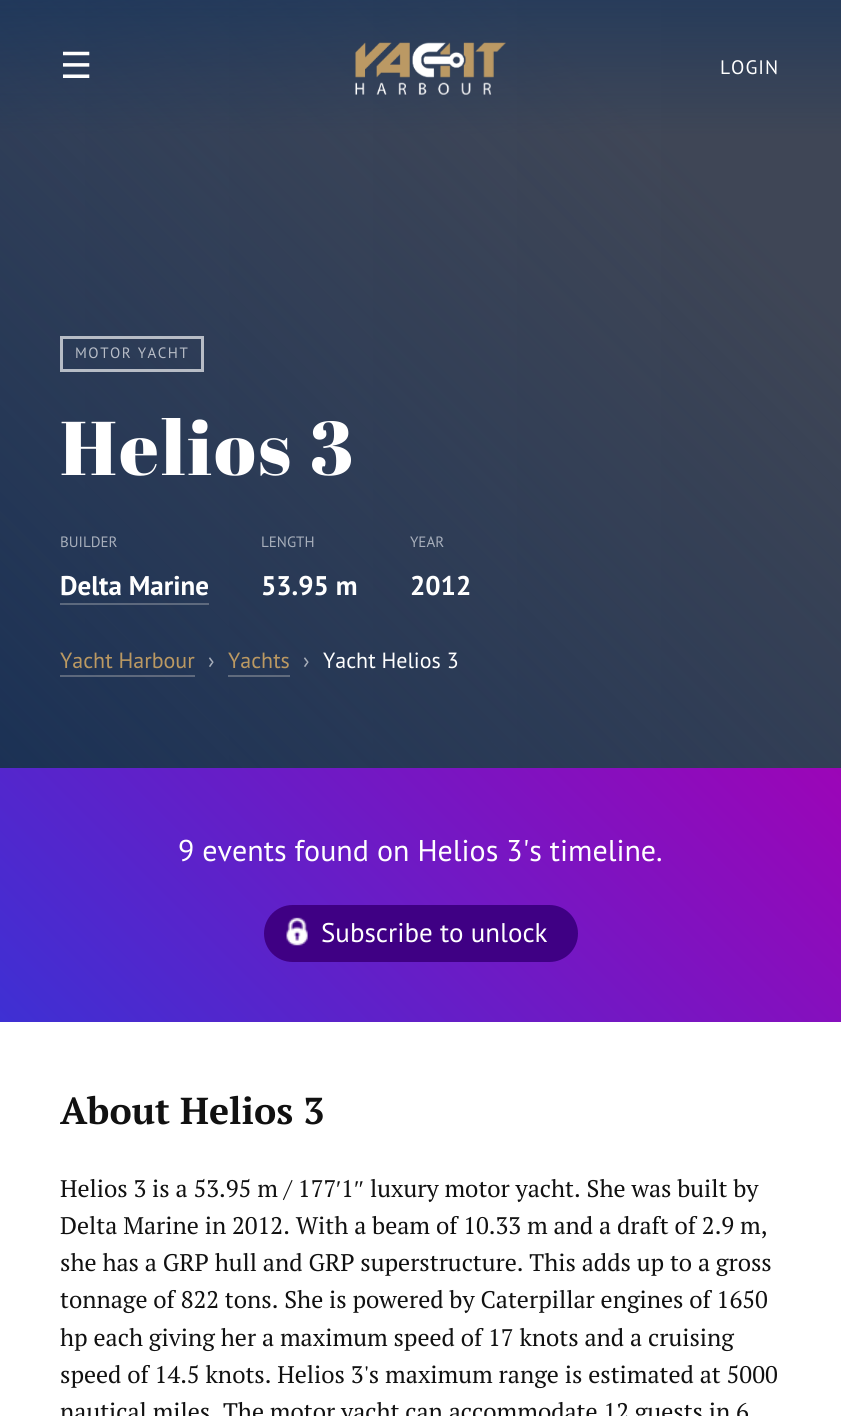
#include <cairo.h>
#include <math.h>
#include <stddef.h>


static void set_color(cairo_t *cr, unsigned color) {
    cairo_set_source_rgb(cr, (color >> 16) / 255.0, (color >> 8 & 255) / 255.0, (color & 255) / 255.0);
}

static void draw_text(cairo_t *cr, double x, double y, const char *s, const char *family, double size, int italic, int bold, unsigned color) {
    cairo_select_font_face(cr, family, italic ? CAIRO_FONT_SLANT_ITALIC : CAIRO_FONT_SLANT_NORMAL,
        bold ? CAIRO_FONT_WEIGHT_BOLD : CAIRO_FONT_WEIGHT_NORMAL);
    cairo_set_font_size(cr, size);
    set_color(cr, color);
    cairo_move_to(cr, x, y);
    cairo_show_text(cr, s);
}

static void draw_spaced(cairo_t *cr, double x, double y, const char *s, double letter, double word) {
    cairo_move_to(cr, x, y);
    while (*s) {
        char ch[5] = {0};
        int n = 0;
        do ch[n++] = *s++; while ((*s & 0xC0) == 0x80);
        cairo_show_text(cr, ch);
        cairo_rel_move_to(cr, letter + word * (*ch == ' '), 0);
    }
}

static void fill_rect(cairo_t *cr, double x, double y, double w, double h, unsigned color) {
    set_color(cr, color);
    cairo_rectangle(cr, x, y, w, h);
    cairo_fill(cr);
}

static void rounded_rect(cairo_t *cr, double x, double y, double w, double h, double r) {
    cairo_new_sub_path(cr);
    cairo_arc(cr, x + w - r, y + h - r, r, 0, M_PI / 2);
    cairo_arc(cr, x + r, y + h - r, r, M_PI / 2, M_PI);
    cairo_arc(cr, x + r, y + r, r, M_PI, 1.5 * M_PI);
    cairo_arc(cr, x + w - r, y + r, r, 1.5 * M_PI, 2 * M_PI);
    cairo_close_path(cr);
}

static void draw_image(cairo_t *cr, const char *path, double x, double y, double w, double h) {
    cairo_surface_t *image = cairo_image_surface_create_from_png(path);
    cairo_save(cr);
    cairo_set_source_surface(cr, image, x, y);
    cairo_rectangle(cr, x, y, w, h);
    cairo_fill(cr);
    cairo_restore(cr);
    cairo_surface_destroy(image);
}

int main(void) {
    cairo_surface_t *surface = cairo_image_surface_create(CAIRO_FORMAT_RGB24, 841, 1416);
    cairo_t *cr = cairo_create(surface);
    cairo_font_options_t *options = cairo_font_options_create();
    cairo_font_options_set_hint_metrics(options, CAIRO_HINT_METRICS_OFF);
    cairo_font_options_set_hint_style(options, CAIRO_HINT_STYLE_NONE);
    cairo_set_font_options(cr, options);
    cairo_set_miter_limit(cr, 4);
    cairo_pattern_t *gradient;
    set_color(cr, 0xFFFFFF);
    cairo_paint(cr);
    draw_image(cr, "assets/img2.png", 0, 0, 841, 768);
    draw_text(cr, 60, 78, "☰", "DejaVu Sans", 36, 0, 0, 0xFFFFFF);
    draw_image(cr, "assets/img1.png", 355, 42, 151, 53);
    cairo_select_font_face(cr, "PT Sans", CAIRO_FONT_SLANT_NORMAL, CAIRO_FONT_WEIGHT_NORMAL);
    cairo_set_font_size(cr, 19.5);
    draw_spaced(cr, 720, 74, "LOGIN", 1, 0);
    cairo_rectangle(cr, 61.5, 337.5, 141, 33);
    cairo_set_source_rgba(cr, 1, 1, 1, 0.66);
    cairo_set_line_width(cr, 3);
    cairo_stroke(cr);
    cairo_set_font_size(cr, 15);
    set_color(cr, 0xB8BDC7);
    draw_spaced(cr, 75, 358, "MOTOR YACHT", 1.5, 0);
    cairo_select_font_face(cr, "Abril Fatface", CAIRO_FONT_SLANT_NORMAL, CAIRO_FONT_WEIGHT_NORMAL);
    cairo_set_font_size(cr, 76);
    set_color(cr, 0xFFFFFF);
    draw_spaced(cr, 60, 475, "Helios 3", 2.5, 0);
    draw_text(cr, 60, 547, "BUILDER", "PT Sans", 15, 0, 0, 0xA8AFBB);
    draw_text(cr, 60, 595, "Delta Marine", "PT Sans", 27, 0, 1, 0xFFFFFF);
    cairo_set_source_rgba(cr, 0.8, 0.8, 0.8, 0.34);
    cairo_rectangle(cr, 60, 603, 149, 2);
    cairo_fill(cr);
    draw_text(cr, 261, 547, "LENGTH", "PT Sans", 15, 0, 0, 0xA8AFBB);
    draw_text(cr, 261, 595, "53.95 m", "PT Sans", 27, 0, 1, 0xFFFFFF);
    draw_text(cr, 410, 547, "YEAR", "PT Sans", 15, 0, 0, 0xA8AFBB);
    draw_text(cr, 410, 595, "2012", "PT Sans", 27, 0, 1, 0xFFFFFF);
    draw_text(cr, 60, 668, "Yacht Harbour", "PT Sans", 22, 0, 0, 0xBB9962);
    cairo_set_source_rgba(cr, 1, 0.965, 0.91, 0.27);
    cairo_rectangle(cr, 60, 675, 135, 2);
    cairo_fill(cr);
    draw_text(cr, 208, 668, "›", "PT Sans", 22, 0, 0, 0xA8AFBB);
    draw_text(cr, 228, 668, "Yachts", "PT Sans", 22, 0, 0, 0xBB9962);
    fill_rect(cr, 228, 675, 62, 2, 0x606B7D);
    draw_text(cr, 303, 668, "›", "PT Sans", 22, 0, 0, 0xA8AFBB);
    draw_text(cr, 323, 668, "Yacht Helios 3", "PT Sans", 22, 0, 0, 0xFFFFFF);
    gradient = cairo_pattern_create_linear(147, 1169, 695, 621);
    cairo_pattern_add_color_stop_rgba(gradient, 0, 0.243, 0.188, 0.827, 1);
    cairo_pattern_add_color_stop_rgba(gradient, 1, 0.612, 0.02, 0.718, 1);
    cairo_set_source(cr, gradient);
    cairo_pattern_destroy(gradient);
    cairo_rectangle(cr, 0, 768, 841, 254);
    cairo_fill(cr);
    draw_text(cr, 178, 861, "9 events found on Helios 3's timeline.", "PT Sans", 30, 0, 0, 0xFFFFFF);
    set_color(cr, 0x3F0084);
    rounded_rect(cr, 264, 905, 314, 57, 28.5);
    cairo_fill(cr);
    draw_image(cr, "assets/img3.png", 286, 917, 22, 29);
    draw_text(cr, 321, 942, "Subscribe to unlock", "PT Sans", 27, 0, 0, 0xFFFFFF);
    draw_text(cr, 60, 1124, "About Helios 3", "PT Serif", 37.5, 0, 1, 0x111111);
    draw_text(cr, 60, 1197, "Helios 3 is a 53.95 m / 177", "PT Serif", 24, 0, 0, 0x111111);
    draw_text(cr, 336, 1197, "′", "Liberation Serif", 24, 0, 0, 0x111111);
    draw_text(cr, 341, 1197, "1", "PT Serif", 24, 0, 0, 0x111111);
    draw_text(cr, 354, 1197, "″", "Liberation Serif", 24, 0, 0, 0x111111);
    draw_text(cr, 370, 1197, "luxury motor yacht. She was built by", "PT Serif", 24, 0, 0, 0x111111);
    draw_text(cr, 60, 1234, "Delta Marine in 2012. With a beam of 10.33 m and a draft of 2.9 m,", "PT Serif", 24, 0, 0, 0x111111);
    draw_text(cr, 60, 1271, "she has a GRP hull and GRP superstructure. This adds up to a gross", "PT Serif", 24, 0, 0, 0x111111);
    draw_text(cr, 60, 1308, "tonnage of 822 tons. She is powered by Caterpillar engines of 1650", "PT Serif", 24, 0, 0, 0x111111);
    draw_text(cr, 60, 1346, "hp each giving her a maximum speed of 17 knots and a cruising", "PT Serif", 24, 0, 0, 0x111111);
    draw_text(cr, 60, 1383, "speed of 14.5 knots. Helios 3's maximum range is estimated at 5000", "PT Serif", 24, 0, 0, 0x111111);
    draw_text(cr, 60, 1420, "nautical miles", "PT Serif", 24, 0, 0, 0x111111);
    draw_text(cr, 223, 1420, "The motor yacht can accommodate 12 guests in 6", "PT Serif", 24, 0, 0, 0x111111);
    cairo_surface_write_to_png(surface, "output.png");
    cairo_font_options_destroy(options);
    cairo_destroy(cr);
    cairo_surface_destroy(surface);
    return 0;
}
